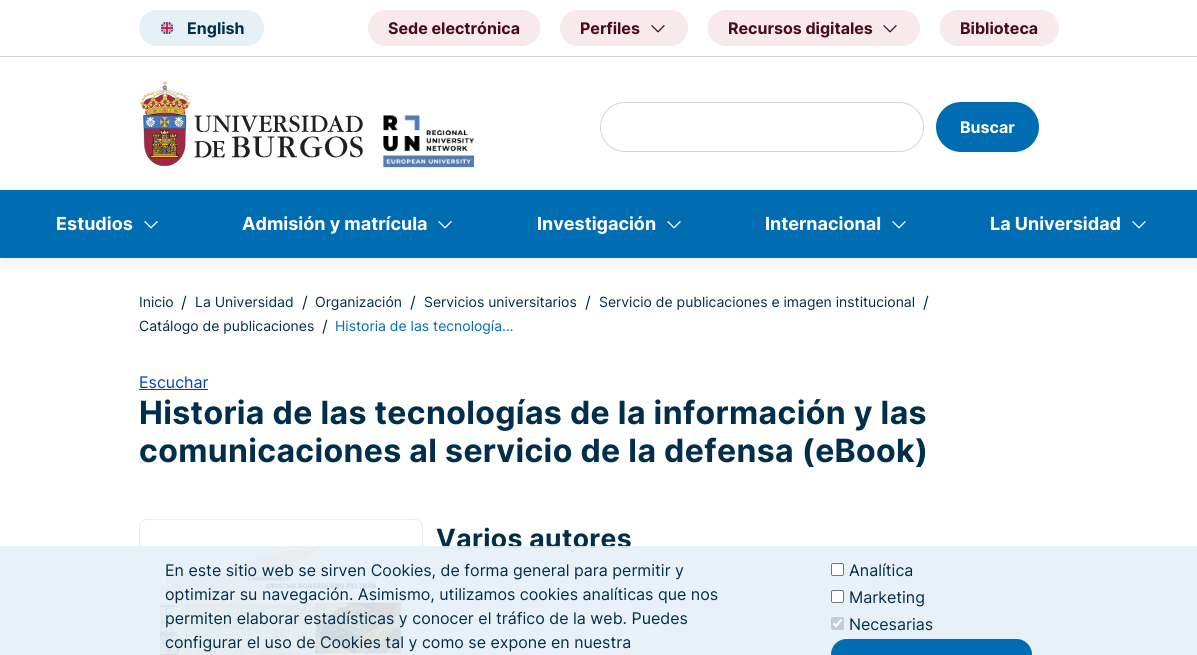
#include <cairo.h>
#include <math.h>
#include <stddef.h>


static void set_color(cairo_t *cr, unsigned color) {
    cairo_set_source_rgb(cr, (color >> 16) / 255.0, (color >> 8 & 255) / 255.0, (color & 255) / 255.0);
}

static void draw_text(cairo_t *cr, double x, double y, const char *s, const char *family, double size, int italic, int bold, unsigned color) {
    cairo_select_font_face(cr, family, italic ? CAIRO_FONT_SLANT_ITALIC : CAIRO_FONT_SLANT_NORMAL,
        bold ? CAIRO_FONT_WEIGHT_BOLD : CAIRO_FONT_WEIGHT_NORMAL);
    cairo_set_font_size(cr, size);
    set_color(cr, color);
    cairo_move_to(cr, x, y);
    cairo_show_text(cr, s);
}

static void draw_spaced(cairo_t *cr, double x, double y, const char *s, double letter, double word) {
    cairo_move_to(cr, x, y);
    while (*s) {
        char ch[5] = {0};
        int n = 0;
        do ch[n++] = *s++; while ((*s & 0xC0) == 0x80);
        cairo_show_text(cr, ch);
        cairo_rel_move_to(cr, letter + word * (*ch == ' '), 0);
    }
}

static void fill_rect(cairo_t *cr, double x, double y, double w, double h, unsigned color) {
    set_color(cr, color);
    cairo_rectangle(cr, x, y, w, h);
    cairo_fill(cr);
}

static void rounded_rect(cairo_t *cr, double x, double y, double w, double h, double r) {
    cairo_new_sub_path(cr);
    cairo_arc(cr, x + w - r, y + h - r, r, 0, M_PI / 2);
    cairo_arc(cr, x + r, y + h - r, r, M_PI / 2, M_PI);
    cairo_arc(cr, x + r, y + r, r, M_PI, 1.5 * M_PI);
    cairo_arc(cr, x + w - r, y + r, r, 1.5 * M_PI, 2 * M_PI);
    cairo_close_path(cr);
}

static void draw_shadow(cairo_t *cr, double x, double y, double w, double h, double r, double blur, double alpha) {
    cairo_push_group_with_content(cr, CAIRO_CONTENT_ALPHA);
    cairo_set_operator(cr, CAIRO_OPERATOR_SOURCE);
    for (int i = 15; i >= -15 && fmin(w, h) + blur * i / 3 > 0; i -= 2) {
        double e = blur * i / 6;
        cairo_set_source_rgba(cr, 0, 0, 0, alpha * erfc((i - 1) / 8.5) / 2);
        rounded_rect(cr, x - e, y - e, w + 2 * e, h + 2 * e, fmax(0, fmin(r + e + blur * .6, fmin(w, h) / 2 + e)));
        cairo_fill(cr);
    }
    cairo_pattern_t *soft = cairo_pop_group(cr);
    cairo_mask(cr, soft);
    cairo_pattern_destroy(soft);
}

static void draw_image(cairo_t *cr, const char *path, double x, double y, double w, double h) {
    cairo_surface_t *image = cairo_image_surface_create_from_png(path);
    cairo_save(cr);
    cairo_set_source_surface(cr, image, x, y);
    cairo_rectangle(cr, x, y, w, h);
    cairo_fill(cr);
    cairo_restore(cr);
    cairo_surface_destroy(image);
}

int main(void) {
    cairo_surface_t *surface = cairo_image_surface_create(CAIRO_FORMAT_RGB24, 1197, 655);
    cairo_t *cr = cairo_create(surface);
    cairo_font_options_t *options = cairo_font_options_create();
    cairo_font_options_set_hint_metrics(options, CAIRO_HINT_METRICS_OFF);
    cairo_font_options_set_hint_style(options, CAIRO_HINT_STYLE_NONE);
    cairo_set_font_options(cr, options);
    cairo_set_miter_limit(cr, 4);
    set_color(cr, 0xFFFFFF);
    cairo_paint(cr);
    fill_rect(cr, 0, 56, 1197, 1, 0xD1D5DB);
    set_color(cr, 0xE6F0F7);
    rounded_rect(cr, 139, 10, 125, 36, 18);
    cairo_fill(cr);
    draw_image(cr, "assets/img1.png", 161, 22, 12, 12);
    draw_text(cr, 187, 34, "English", "Inter", 16, 0, 1, 0x002E4B);
    set_color(cr, 0xF7E9EC);
    rounded_rect(cr, 368, 10, 172, 36, 18);
    cairo_fill(cr);
    draw_text(cr, 388, 34, "Sede electrónica", "Inter", 16, 0, 1, 0x470E19);
    set_color(cr, 0xF7E9EC);
    rounded_rect(cr, 560, 10, 128, 36, 18);
    cairo_fill(cr);
    draw_text(cr, 580, 34, "Perfiles", "Inter", 16, 0, 1, 0x470E19);
    draw_image(cr, "assets/img2.png", 651, 25, 14, 8);
    set_color(cr, 0xF7E9EC);
    rounded_rect(cr, 708, 10, 212, 36, 18);
    cairo_fill(cr);
    draw_text(cr, 728, 34, "Recursos digitales", "Inter", 16, 0, 1, 0x470E19);
    draw_image(cr, "assets/img2.png", 883, 25, 14, 8);
    set_color(cr, 0xF7E9EC);
    rounded_rect(cr, 940, 10, 119, 36, 18);
    cairo_fill(cr);
    draw_text(cr, 960, 34, "Biblioteca", "Inter", 16, 0, 1, 0x470E19);
    draw_image(cr, "assets/img3.png", 139, 81, 224, 85);
    draw_image(cr, "assets/img4.png", 383, 115, 91, 53);
    rounded_rect(cr, 600.5, 102.5, 323, 49, 24.5);
    set_color(cr, 0xD1D5DB);
    cairo_set_line_width(cr, 1);
    cairo_stroke(cr);
    set_color(cr, 0x006DB3);
    rounded_rect(cr, 936, 102, 103, 50, 25);
    cairo_fill(cr);
    draw_text(cr, 960, 133, "Buscar", "Inter", 16, 0, 1, 0xFFFFFF);
    set_color(cr, 0x000000);
    draw_shadow(cr, 2, 198, 1193, 64, 0, 7.5, 0.08);
    fill_rect(cr, 0, 190, 1197, 68, 0x006DB3);
    draw_text(cr, 56, 230, "Estudios", "Inter", 18, 0, 1, 0xFFFFFF);
    draw_image(cr, "assets/img5.png", 144, 221, 14, 8);
    draw_text(cr, 242, 230, "Admisión y matrícula", "Inter", 18, 0, 1, 0xFFFFFF);
    draw_image(cr, "assets/img5.png", 438, 221, 14, 8);
    draw_text(cr, 537, 230, "Investigación", "Inter", 18, 0, 1, 0xFFFFFF);
    draw_image(cr, "assets/img5.png", 667, 221, 14, 8);
    draw_text(cr, 765, 230, "Internacional", "Inter", 18, 0, 1, 0xFFFFFF);
    draw_image(cr, "assets/img5.png", 892, 221, 14, 8);
    draw_text(cr, 990, 230, "La Universidad", "Inter", 18, 0, 1, 0xFFFFFF);
    draw_image(cr, "assets/img5.png", 1132, 221, 14, 8);
    draw_text(cr, 139, 307, "Inicio", "Inter", 14, 0, 0, 0x002E4B);
    draw_text(cr, 181, 308, "/", "Inter", 16, 0, 0, 0x002E4B);
    draw_text(cr, 195, 307, "La Universidad", "Inter", 14, 0, 0, 0x002E4B);
    draw_text(cr, 302, 308, "/", "Inter", 16, 0, 0, 0x002E4B);
    draw_text(cr, 315, 307, "Organización", "Inter", 14, 0, 0, 0x002E4B);
    draw_text(cr, 410, 308, "/", "Inter", 16, 0, 0, 0x002E4B);
    draw_text(cr, 424, 307, "Servicios universitarios", "Inter", 14, 0, 0, 0x002E4B);
    draw_text(cr, 585, 308, "/", "Inter", 16, 0, 0, 0x002E4B);
    draw_text(cr, 599, 307, "Servicio de publicaciones e imagen institucional", "Inter", 14, 0, 0, 0x002E4B);
    draw_text(cr, 923, 308, "/", "Inter", 16, 0, 0, 0x002E4B);
    draw_text(cr, 139, 331, "Catálogo de publicaciones", "Inter", 14, 0, 0, 0x002E4B);
    draw_text(cr, 322, 332, "/", "Inter", 16, 0, 0, 0x002E4B);
    draw_text(cr, 335, 331, "Historia de las tecnología…", "Inter", 14, 0, 0, 0x006DB3);
    draw_text(cr, 139, 388, "Escuchar", "Inter", 16, 0, 0, 0x003ECC);
    fill_rect(cr, 139, 389, 69, 1, 0x003ECC);
    cairo_select_font_face(cr, "Inter", CAIRO_FONT_SLANT_NORMAL, CAIRO_FONT_WEIGHT_BOLD);
    cairo_set_font_size(cr, 32);
    set_color(cr, 0x002E4B);
    draw_spaced(cr, 139, 424, "Historia de las tecnologías de la información y las", 0.35, 0);
    draw_spaced(cr, 139, 462, "comunicaciones al servicio de la defensa (eBook)", 0.35, 0);
    rounded_rect(cr, 139.5, 519.5, 283, 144, 7.5);
    set_color(cr, 0xE8EAED);
    cairo_stroke(cr);
    draw_image(cr, "assets/img6.png", 160, 547, 241, 108);
    fill_rect(cr, 436, 619, 623, 1, 0xE8EAED);
    cairo_set_font_size(cr, 26.5);
    set_color(cr, 0x002E4B);
    draw_spaced(cr, 436, 548, "Varios autores", 0.4, 0);
    cairo_set_source_rgba(cr, 0.902, 0.941, 0.969, 0.9);
    cairo_rectangle(cr, 0, 546, 1197, 109);
    cairo_fill(cr);
    draw_text(cr, 165, 576, "En este sitio web se sirven Cookies, de forma general para permitir y", "Inter", 16, 0, 0, 0x002E4B);
    draw_text(cr, 165, 600, "optimizar su navegación. Asimismo, utilizamos cookies analíticas que nos", "Inter", 16, 0, 0, 0x002E4B);
    draw_text(cr, 165, 624, "permiten elaborar estadísticas y conocer el tráfico de la web. Puedes", "Inter", 16, 0, 0, 0x002E4B);
    draw_text(cr, 165, 648, "configurar el uso de Cookies tal y como se expone en nuestra", "Inter", 16, 0, 0, 0x002E4B);
    set_color(cr, 0xFFFFFF);
    rounded_rect(cr, 831.5, 563.5, 12, 12, 1.5);
    cairo_fill_preserve(cr);
    set_color(cr, 0x767676);
    cairo_stroke(cr);
    draw_text(cr, 849, 576, "Analítica", "Inter", 16, 0, 0, 0x002E4B);
    set_color(cr, 0xFFFFFF);
    rounded_rect(cr, 831.5, 590.5, 12, 12, 1.5);
    cairo_fill_preserve(cr);
    set_color(cr, 0x767676);
    cairo_stroke(cr);
    draw_text(cr, 849, 603, "Marketing", "Inter", 16, 0, 0, 0x002E4B);
    set_color(cr, 0xC6CCD1);
    rounded_rect(cr, 831, 617, 13, 13, 2);
    cairo_fill(cr);
    cairo_new_path(cr);
    cairo_move_to(cr, 833.5, 623.5);
    cairo_line_to(cr, 836, 626);
    cairo_line_to(cr, 841.5, 619.5);
    set_color(cr, 0xFFFFFF);
    cairo_set_line_width(cr, 2.1);
    cairo_stroke(cr);
    draw_text(cr, 849, 630, "Necesarias", "Inter", 16, 0, 0, 0x002E4B);
    set_color(cr, 0x006DB3);
    rounded_rect(cr, 831, 639, 201, 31, 15.5);
    cairo_fill(cr);
    cairo_surface_write_to_png(surface, "output.png");
    cairo_font_options_destroy(options);
    cairo_destroy(cr);
    cairo_surface_destroy(surface);
    return 0;
}
